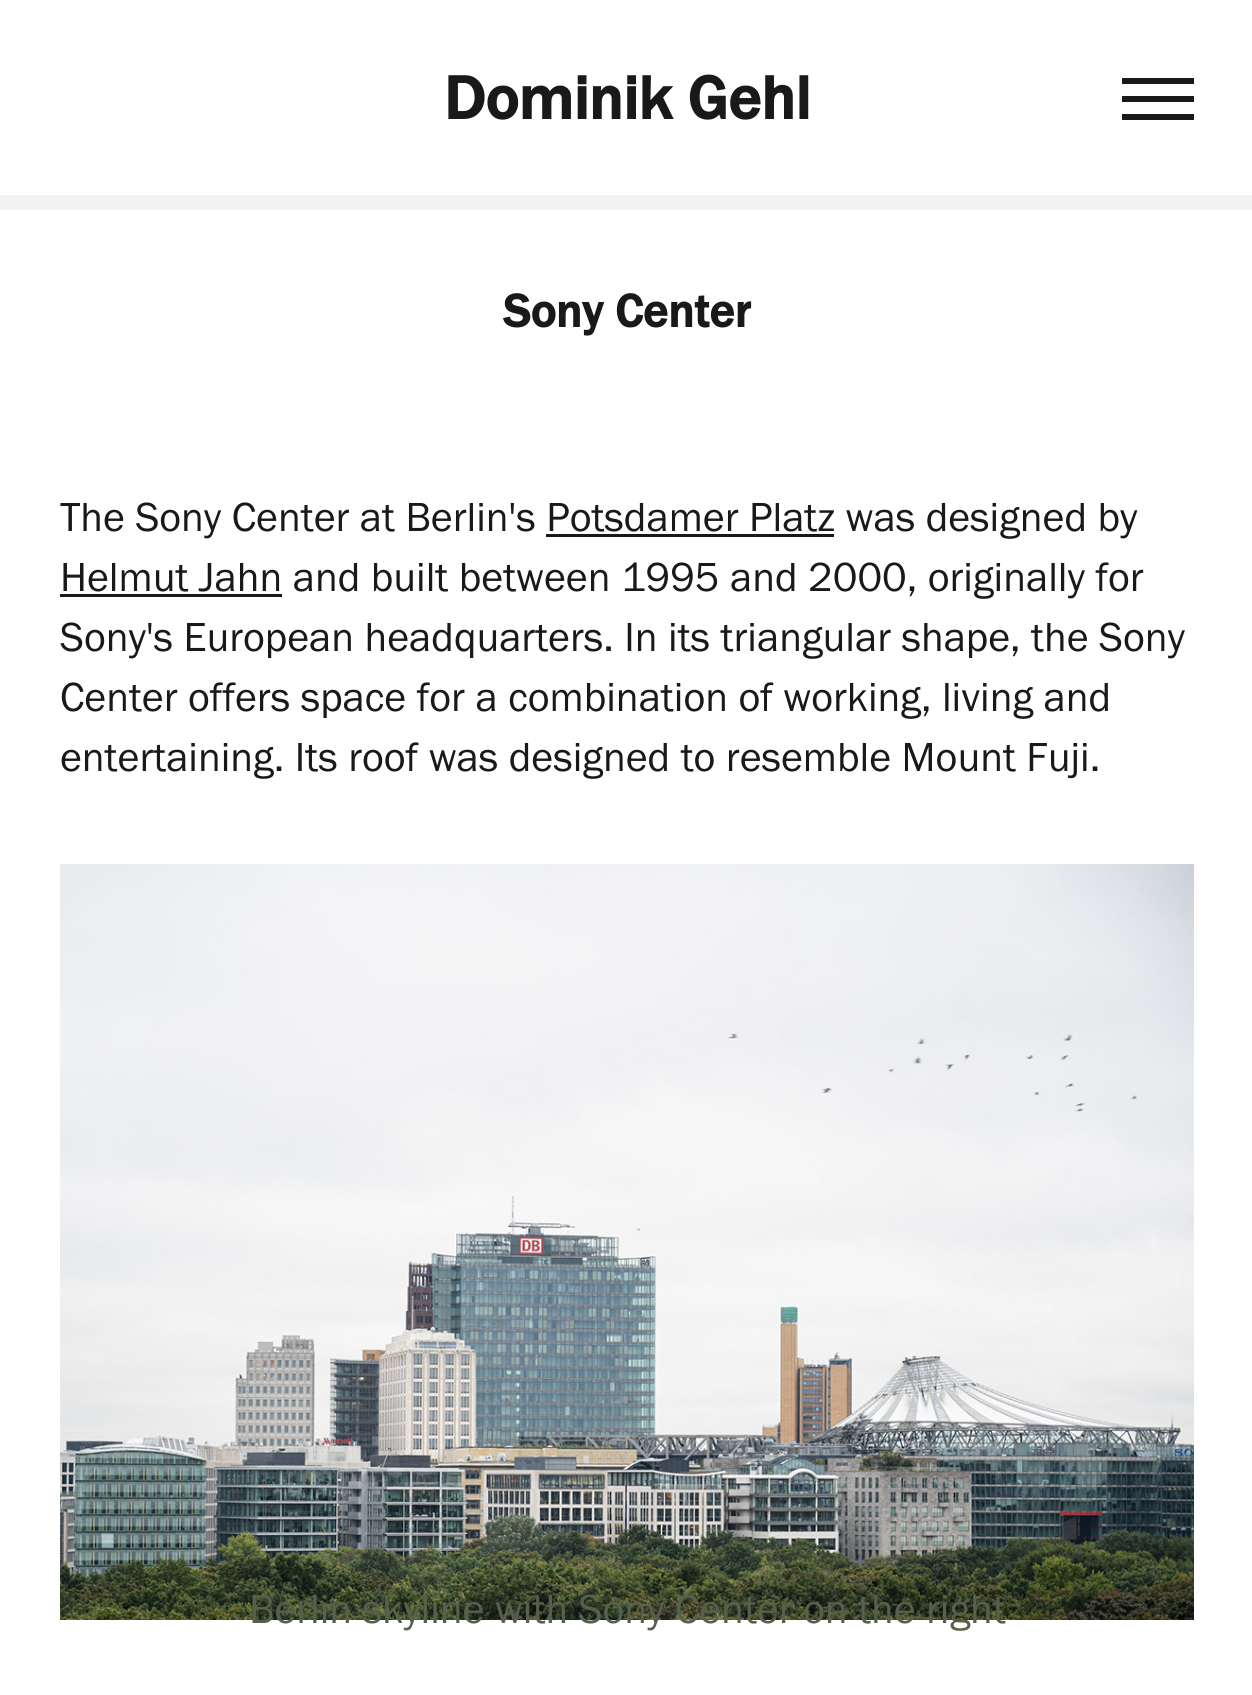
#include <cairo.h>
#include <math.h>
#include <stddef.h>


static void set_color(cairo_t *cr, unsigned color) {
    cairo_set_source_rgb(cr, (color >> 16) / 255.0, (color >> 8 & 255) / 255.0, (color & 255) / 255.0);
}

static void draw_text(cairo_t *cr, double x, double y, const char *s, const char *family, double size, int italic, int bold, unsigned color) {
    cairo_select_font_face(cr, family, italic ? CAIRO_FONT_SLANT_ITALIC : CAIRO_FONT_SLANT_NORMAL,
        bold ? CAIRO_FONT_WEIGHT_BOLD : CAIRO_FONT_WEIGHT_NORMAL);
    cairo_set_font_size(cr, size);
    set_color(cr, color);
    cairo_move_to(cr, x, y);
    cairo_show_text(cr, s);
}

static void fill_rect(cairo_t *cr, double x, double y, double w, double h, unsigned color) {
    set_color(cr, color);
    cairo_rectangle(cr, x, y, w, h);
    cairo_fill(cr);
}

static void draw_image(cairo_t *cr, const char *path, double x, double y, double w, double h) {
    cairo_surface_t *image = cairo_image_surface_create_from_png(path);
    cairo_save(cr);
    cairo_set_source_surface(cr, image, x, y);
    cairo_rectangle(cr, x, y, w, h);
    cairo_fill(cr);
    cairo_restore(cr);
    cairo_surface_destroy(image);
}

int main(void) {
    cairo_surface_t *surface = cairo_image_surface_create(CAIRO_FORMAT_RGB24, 1252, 1695);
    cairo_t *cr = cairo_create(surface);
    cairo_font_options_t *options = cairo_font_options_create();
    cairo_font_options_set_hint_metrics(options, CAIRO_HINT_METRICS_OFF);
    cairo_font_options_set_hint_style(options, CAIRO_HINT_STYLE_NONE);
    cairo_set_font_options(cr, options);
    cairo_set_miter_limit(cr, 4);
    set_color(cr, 0xFFFFFF);
    cairo_paint(cr);
    fill_rect(cr, 0, 195, 1252, 15, 0xF2F2F2);
    draw_text(cr, 444, 119, "Dominik Gehl", "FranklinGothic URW", 63, 0, 1, 0x191919);
    fill_rect(cr, 1122, 78, 72, 6, 0x191919);
    fill_rect(cr, 1122, 96, 72, 6, 0x191919);
    fill_rect(cr, 1122, 114, 72, 6, 0x191919);
    draw_text(cr, 503, 327, "Sony Center", "FranklinGothic URW", 48, 0, 1, 0x191919);
    draw_text(cr, 60, 531, "The Sony Center at Berlin's Potsdamer Platz was designed by", "FranklinGothic URW", 42, 0, 0, 0x191919);
    fill_rect(cr, 546, 534, 288, 3, 0x191919);
    fill_rect(cr, 60, 594, 222, 3, 0x191919);
    draw_text(cr, 60, 591, "Helmut Jahn and built between 1995 and 2000, originally for", "FranklinGothic URW", 42, 0, 0, 0x191919);
    draw_text(cr, 60, 651, "Sony's European headquarters. In its triangular shape, the Sony", "FranklinGothic URW", 42, 0, 0, 0x191919);
    draw_text(cr, 60, 711, "Center offers space for a combination of working, living and", "FranklinGothic URW", 42, 0, 0, 0x191919);
    draw_text(cr, 60, 771, "entertaining. Its roof was designed to resemble Mount Fuji.", "FranklinGothic URW", 42, 0, 0, 0x191919);
    draw_image(cr, "assets/img1.png", 60, 864, 1134, 756);
    draw_text(cr, 249, 1623, "Berlin skyline with Sony Center on the right", "FranklinGothic URW", 42, 0, 0, 0x585F4C);
    cairo_surface_write_to_png(surface, "output.png");
    cairo_font_options_destroy(options);
    cairo_destroy(cr);
    cairo_surface_destroy(surface);
    return 0;
}
